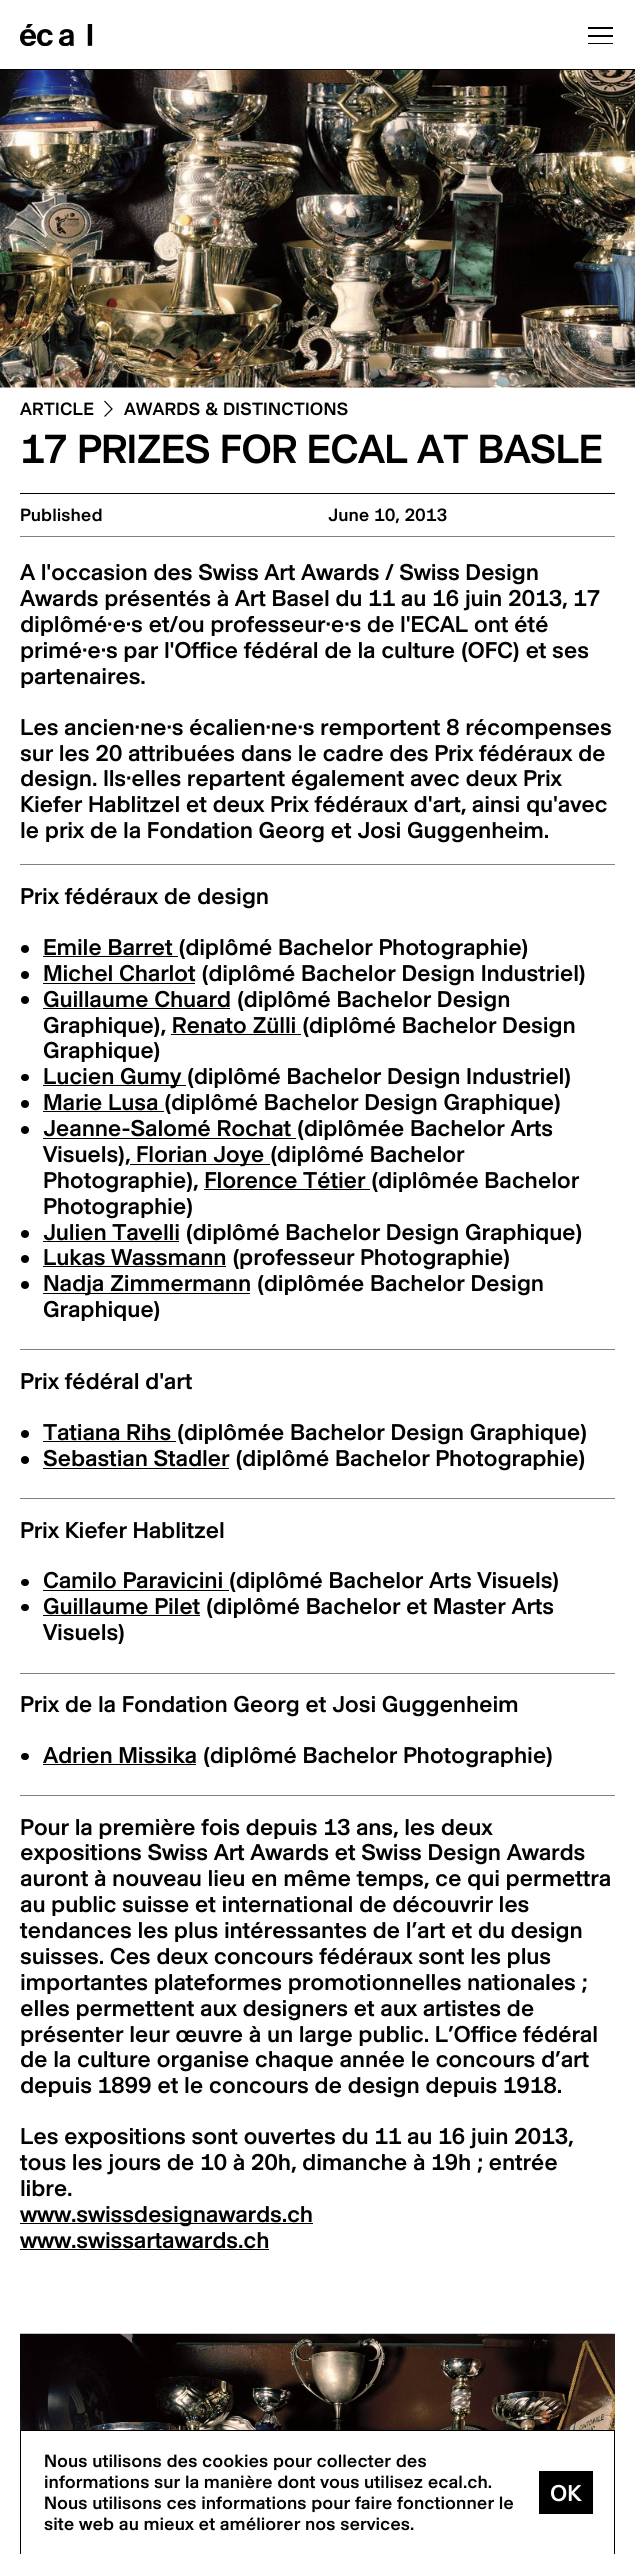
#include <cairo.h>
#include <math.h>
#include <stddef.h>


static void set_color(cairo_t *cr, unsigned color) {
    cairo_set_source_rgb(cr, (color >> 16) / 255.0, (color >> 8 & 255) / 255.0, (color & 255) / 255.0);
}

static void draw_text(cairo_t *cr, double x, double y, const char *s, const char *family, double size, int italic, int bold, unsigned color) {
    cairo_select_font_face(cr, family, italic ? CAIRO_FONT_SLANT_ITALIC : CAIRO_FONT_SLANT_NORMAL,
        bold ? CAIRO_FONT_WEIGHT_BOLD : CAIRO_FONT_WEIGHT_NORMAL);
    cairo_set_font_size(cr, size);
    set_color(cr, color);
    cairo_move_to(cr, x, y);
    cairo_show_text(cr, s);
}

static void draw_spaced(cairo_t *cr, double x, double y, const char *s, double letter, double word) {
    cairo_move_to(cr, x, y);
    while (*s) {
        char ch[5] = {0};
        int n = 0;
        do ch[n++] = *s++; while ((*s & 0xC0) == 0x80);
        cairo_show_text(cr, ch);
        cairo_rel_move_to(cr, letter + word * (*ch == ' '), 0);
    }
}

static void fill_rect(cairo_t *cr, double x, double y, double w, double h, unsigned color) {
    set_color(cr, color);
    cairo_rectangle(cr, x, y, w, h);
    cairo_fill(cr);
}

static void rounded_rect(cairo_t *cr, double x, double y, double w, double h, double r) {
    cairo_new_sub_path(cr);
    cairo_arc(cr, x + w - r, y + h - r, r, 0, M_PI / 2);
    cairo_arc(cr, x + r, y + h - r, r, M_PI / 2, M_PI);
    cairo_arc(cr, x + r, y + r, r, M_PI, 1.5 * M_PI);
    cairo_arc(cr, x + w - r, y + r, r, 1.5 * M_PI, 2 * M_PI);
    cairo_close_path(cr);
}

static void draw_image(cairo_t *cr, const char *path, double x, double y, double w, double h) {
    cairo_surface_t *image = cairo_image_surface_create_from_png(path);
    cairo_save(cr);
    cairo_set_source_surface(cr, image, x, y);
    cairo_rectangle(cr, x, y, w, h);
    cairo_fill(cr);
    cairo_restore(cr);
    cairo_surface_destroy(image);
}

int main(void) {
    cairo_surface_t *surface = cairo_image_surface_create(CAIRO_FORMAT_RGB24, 635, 2554);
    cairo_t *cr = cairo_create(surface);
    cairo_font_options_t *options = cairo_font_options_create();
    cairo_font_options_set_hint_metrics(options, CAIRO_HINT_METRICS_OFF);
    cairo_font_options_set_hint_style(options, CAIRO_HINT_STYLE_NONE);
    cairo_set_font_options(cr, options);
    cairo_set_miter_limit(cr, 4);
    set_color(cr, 0xFFFFFF);
    cairo_paint(cr);
    draw_image(cr, "assets/img1.png", 20, 24, 73, 22);
    fill_rect(cr, 588, 43, 25, 1, 0x000000);
    fill_rect(cr, 588, 35, 25, 2, 0x000000);
    fill_rect(cr, 588, 27, 25, 2, 0x000000);
    fill_rect(cr, 0, 69, 635, 1, 0x000000);
    draw_image(cr, "assets/img2.png", 0, 70, 635, 318);
    cairo_select_font_face(cr, "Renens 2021 Medium", CAIRO_FONT_SLANT_NORMAL, CAIRO_FONT_WEIGHT_NORMAL);
    cairo_set_font_size(cr, 17.5);
    draw_spaced(cr, 20, 415, "ARTICLE", 0.2, 0);
    cairo_new_path(cr);
    cairo_move_to(cr, 104.5, 401);
    cairo_line_to(cr, 112, 409);
    cairo_line_to(cr, 104.5, 416.5);
    cairo_set_line_width(cr, 1.2);
    cairo_stroke(cr);
    draw_spaced(cr, 124, 415, "AWARDS & DISTINCTIONS", 0.2, 0);
    cairo_set_font_size(cr, 40);
    draw_spaced(cr, 20, 463, "17 PRIZES FOR ECAL AT BASLE", -0.8, 0);
    fill_rect(cr, 20, 493, 595, 1, 0x000000);
    draw_text(cr, 20, 521, "Published", "Renens 2021 Medium", 17.5, 0, 0, 0x000000);
    draw_text(cr, 328, 521, "June 10, 2013", "Renens 2021 Medium", 17.5, 0, 0, 0x000000);
    fill_rect(cr, 20, 536, 595, 1, 0x808080);
    cairo_set_font_size(cr, 22.5);
    set_color(cr, 0x000000);
    draw_spaced(cr, 20, 580, "A l'occasion des Swiss Art Awards / Swiss Design", -0.22, 0);
    draw_spaced(cr, 20, 606, "Awards présentés à Art Basel du 11 au 16 juin 2013, 17", -0.22, 0);
    draw_spaced(cr, 20, 632, "diplômé·e·s et/ou professeur·e·s de l'ECAL ont été", -0.22, 0);
    draw_spaced(cr, 20, 658, "primé·e·s par l'Office fédéral de la culture (OFC) et ses", -0.22, 0);
    draw_spaced(cr, 20, 684, "partenaires.", -0.22, 0);
    draw_spaced(cr, 20, 735, "Les ancien·ne·s écalien·ne·s remportent 8 récompenses", -0.22, 0);
    draw_spaced(cr, 20, 761, "sur les 20 attribuées dans le cadre des Prix fédéraux de", -0.22, 0);
    draw_spaced(cr, 20, 786, "design. Ils·elles repartent également avec deux Prix", -0.22, 0);
    draw_spaced(cr, 20, 812, "Kiefer Hablitzel et deux Prix fédéraux d'art, ainsi qu'avec", -0.22, 0);
    draw_spaced(cr, 20, 838, "le prix de la Fondation Georg et Josi Guggenheim.", -0.22, 0);
    fill_rect(cr, 20, 864, 595, 1, 0x808080);
    set_color(cr, 0x000000);
    draw_spaced(cr, 20, 904, "Prix fédéraux de design", -0.22, 0);
    cairo_new_path(cr);
    cairo_arc(cr, 25, 949, 4, 0, 2 * M_PI);
    cairo_fill(cr);
    fill_rect(cr, 43, 956, 135, 1, 0x000000);
    draw_spaced(cr, 43, 955, "Emile Barret (diplômé Bachelor Photographie)", -0.22, 0);
    cairo_new_path(cr);
    cairo_arc(cr, 25, 975, 4, 0, 2 * M_PI);
    cairo_fill(cr);
    fill_rect(cr, 43, 983, 152, 1, 0x000000);
    draw_spaced(cr, 43, 981, "Michel Charlot (diplômé Bachelor Design Industriel)", -0.22, 0);
    cairo_new_path(cr);
    cairo_arc(cr, 25, 1000, 4, 0, 2 * M_PI);
    cairo_fill(cr);
    fill_rect(cr, 43, 1008, 187, 1, 0x000000);
    draw_spaced(cr, 43, 1007, "Guillaume Chuard (diplômé Bachelor Design", -0.22, 0);
    draw_spaced(cr, 43, 1033, "Graphique), Renato Zülli (diplômé Bachelor Design", -0.22, 0);
    fill_rect(cr, 171, 1034, 130, 1, 0x000000);
    draw_spaced(cr, 43, 1058, "Graphique)", -0.22, 0);
    rounded_rect(cr, 21, 1074, 8, 7, 3.5);
    cairo_fill(cr);
    fill_rect(cr, 43, 1085, 143, 1, 0x000000);
    draw_spaced(cr, 43, 1084, "Lucien Gumy (diplômé Bachelor Design Industriel)", -0.22, 0);
    cairo_new_path(cr);
    cairo_arc(cr, 25, 1104, 4, 0, 2 * M_PI);
    cairo_fill(cr);
    fill_rect(cr, 43, 1111, 121, 1, 0x000000);
    draw_spaced(cr, 43, 1110, "Marie Lusa (diplômé Bachelor Design Graphique)", -0.22, 0);
    cairo_new_path(cr);
    cairo_arc(cr, 25, 1130, 4, 0, 2 * M_PI);
    cairo_fill(cr);
    fill_rect(cr, 43, 1138, 253, 1, 0x000000);
    draw_spaced(cr, 43, 1136, "Jeanne-Salomé Rochat (diplômée Bachelor Arts", -0.22, 0);
    draw_spaced(cr, 43, 1162, "Visuels),", -0.22, 0);
    fill_rect(cr, 130, 1164, 140, 1, 0x000000);
    draw_spaced(cr, 136, 1162, "Florian Joye (diplômé Bachelor", -0.22, 0);
    draw_spaced(cr, 43, 1188, "Photographie), Florence Tétier (diplômée Bachelor", -0.22, 0);
    fill_rect(cr, 204, 1189, 166, 1, 0x000000);
    draw_spaced(cr, 43, 1214, "Photographie)", -0.22, 0);
    cairo_new_path(cr);
    cairo_arc(cr, 25, 1234, 4, 0, 2 * M_PI);
    cairo_fill(cr);
    fill_rect(cr, 43, 1241, 136, 1, 0x000000);
    draw_spaced(cr, 43, 1240, "Julien Tavelli (diplômé Bachelor Design Graphique)", -0.22, 0);
    cairo_new_path(cr);
    cairo_arc(cr, 25, 1259, 4, 0, 2 * M_PI);
    cairo_fill(cr);
    fill_rect(cr, 43, 1266, 183, 1, 0x000000);
    draw_spaced(cr, 43, 1265, "Lukas Wassmann (professeur Photographie)", -0.22, 0);
    cairo_new_path(cr);
    cairo_arc(cr, 25, 1285, 4, 0, 2 * M_PI);
    cairo_fill(cr);
    fill_rect(cr, 43, 1293, 207, 1, 0x000000);
    draw_spaced(cr, 43, 1291, "Nadja Zimmermann (diplômée Bachelor Design", -0.22, 0);
    draw_spaced(cr, 43, 1317, "Graphique)", -0.22, 0);
    fill_rect(cr, 20, 1349, 595, 1, 0x808080);
    set_color(cr, 0x000000);
    draw_spaced(cr, 20, 1389, "Prix fédéral d'art", -0.22, 0);
    cairo_new_path(cr);
    cairo_arc(cr, 25, 1434, 4, 0, 2 * M_PI);
    cairo_fill(cr);
    fill_rect(cr, 43, 1441, 133, 1, 0x000000);
    draw_spaced(cr, 43, 1440, "Tatiana Rihs (diplômée Bachelor Design Graphique)", -0.22, 0);
    cairo_new_path(cr);
    cairo_arc(cr, 25, 1460, 4, 0, 2 * M_PI);
    cairo_fill(cr);
    fill_rect(cr, 43, 1468, 186, 1, 0x000000);
    draw_spaced(cr, 43, 1466, "Sebastian Stadler (diplômé Bachelor Photographie)", -0.22, 0);
    fill_rect(cr, 20, 1498, 595, 1, 0x808080);
    set_color(cr, 0x000000);
    draw_spaced(cr, 20, 1538, "Prix Kiefer Hablitzel", -0.22, 0);
    rounded_rect(cr, 21, 1579, 8, 7, 3.5);
    cairo_fill(cr);
    fill_rect(cr, 43, 1590, 186, 1, 0x000000);
    draw_spaced(cr, 43, 1588, "Camilo Paravicini (diplômé Bachelor Arts Visuels)", -0.22, 0);
    rounded_rect(cr, 21, 1604, 8, 7, 3.5);
    cairo_fill(cr);
    fill_rect(cr, 43, 1615, 157, 1, 0x000000);
    draw_spaced(cr, 43, 1614, "Guillaume Pilet (diplômé Bachelor et Master Arts", -0.22, 0);
    draw_spaced(cr, 43, 1640, "Visuels)", -0.22, 0);
    fill_rect(cr, 20, 1673, 595, 1, 0x808080);
    set_color(cr, 0x000000);
    draw_spaced(cr, 20, 1712, "Prix de la Fondation Georg et Josi Guggenheim", -0.22, 0);
    rounded_rect(cr, 21, 1753, 8, 7, 3.5);
    cairo_fill(cr);
    fill_rect(cr, 43, 1764, 153, 1, 0x000000);
    draw_spaced(cr, 43, 1763, "Adrien Missika (diplômé Bachelor Photographie)", -0.22, 0);
    fill_rect(cr, 20, 1795, 595, 1, 0x808080);
    set_color(cr, 0x000000);
    draw_spaced(cr, 20, 1835, "Pour la première fois depuis 13 ans, les deux", -0.22, 0);
    draw_spaced(cr, 20, 1860, "expositions Swiss Art Awards et Swiss Design Awards", -0.22, 0);
    draw_spaced(cr, 20, 1886, "auront à nouveau lieu en même temps, ce qui permettra", -0.22, 0);
    draw_spaced(cr, 20, 1912, "au public suisse et international de découvrir les", -0.22, 0);
    draw_spaced(cr, 20, 1938, "tendances les plus intéressantes de l’art et du design", -0.22, 0);
    draw_spaced(cr, 20, 1964, "suisses. Ces deux concours fédéraux sont les plus", -0.22, 0);
    draw_spaced(cr, 20, 1990, "importantes plateformes promotionnelles nationales ;", -0.22, 0);
    draw_spaced(cr, 20, 2016, "elles permettent aux designers et aux artistes de", -0.22, 0);
    draw_spaced(cr, 20, 2042, "présenter leur œuvre à un large public. L’Office fédéral", -0.22, 0);
    draw_spaced(cr, 20, 2067, "de la culture organise chaque année le concours d’art", -0.22, 0);
    draw_spaced(cr, 20, 2093, "depuis 1899 et le concours de design depuis 1918.", -0.22, 0);
    draw_spaced(cr, 20, 2144, "Les expositions sont ouvertes du 11 au 16 juin 2013,", -0.22, 0);
    draw_spaced(cr, 20, 2170, "tous les jours de 10 à 20h, dimanche à 19h ; entrée", -0.22, 0);
    draw_spaced(cr, 20, 2196, "libre.", -0.22, 0);
    fill_rect(cr, 20, 2223, 293, 1, 0x000000);
    draw_spaced(cr, 20, 2222, "www.swissdesignawards.ch", -0.22, 0);
    draw_spaced(cr, 20, 2248, "www.swissartawards.ch", -0.22, 0);
    fill_rect(cr, 20, 2249, 249, 1, 0x000000);
    draw_image(cr, "assets/img3.png", 20, 2333, 595, 97);
    fill_rect(cr, 20, 2430, 595, 1, 0x000000);
    fill_rect(cr, 614, 2430, 1, 124, 0x000000);
    fill_rect(cr, 20, 2430, 1, 124, 0x000000);
    draw_text(cr, 44, 2467, "Nous utilisons des cookies pour collecter des", "Renens 2021 Medium", 17.5, 0, 0, 0x000000);
    draw_text(cr, 44, 2488, "informations sur la manière dont vous utilisez ecal.ch.", "Renens 2021 Medium", 17.5, 0, 0, 0x000000);
    fill_rect(cr, 539, 2471, 54, 43, 0x000000);
    draw_text(cr, 550, 2501, "OK", "Renens 2021 Medium", 22.5, 0, 0, 0xFFFFFF);
    draw_text(cr, 44, 2509, "Nous utilisons ces informations pour faire fonctionner le", "Renens 2021 Medium", 17.5, 0, 0, 0x000000);
    draw_text(cr, 44, 2530, "site web au mieux et améliorer nos services.", "Renens 2021 Medium", 17.5, 0, 0, 0x000000);
    cairo_surface_write_to_png(surface, "output.png");
    cairo_font_options_destroy(options);
    cairo_destroy(cr);
    cairo_surface_destroy(surface);
    return 0;
}
